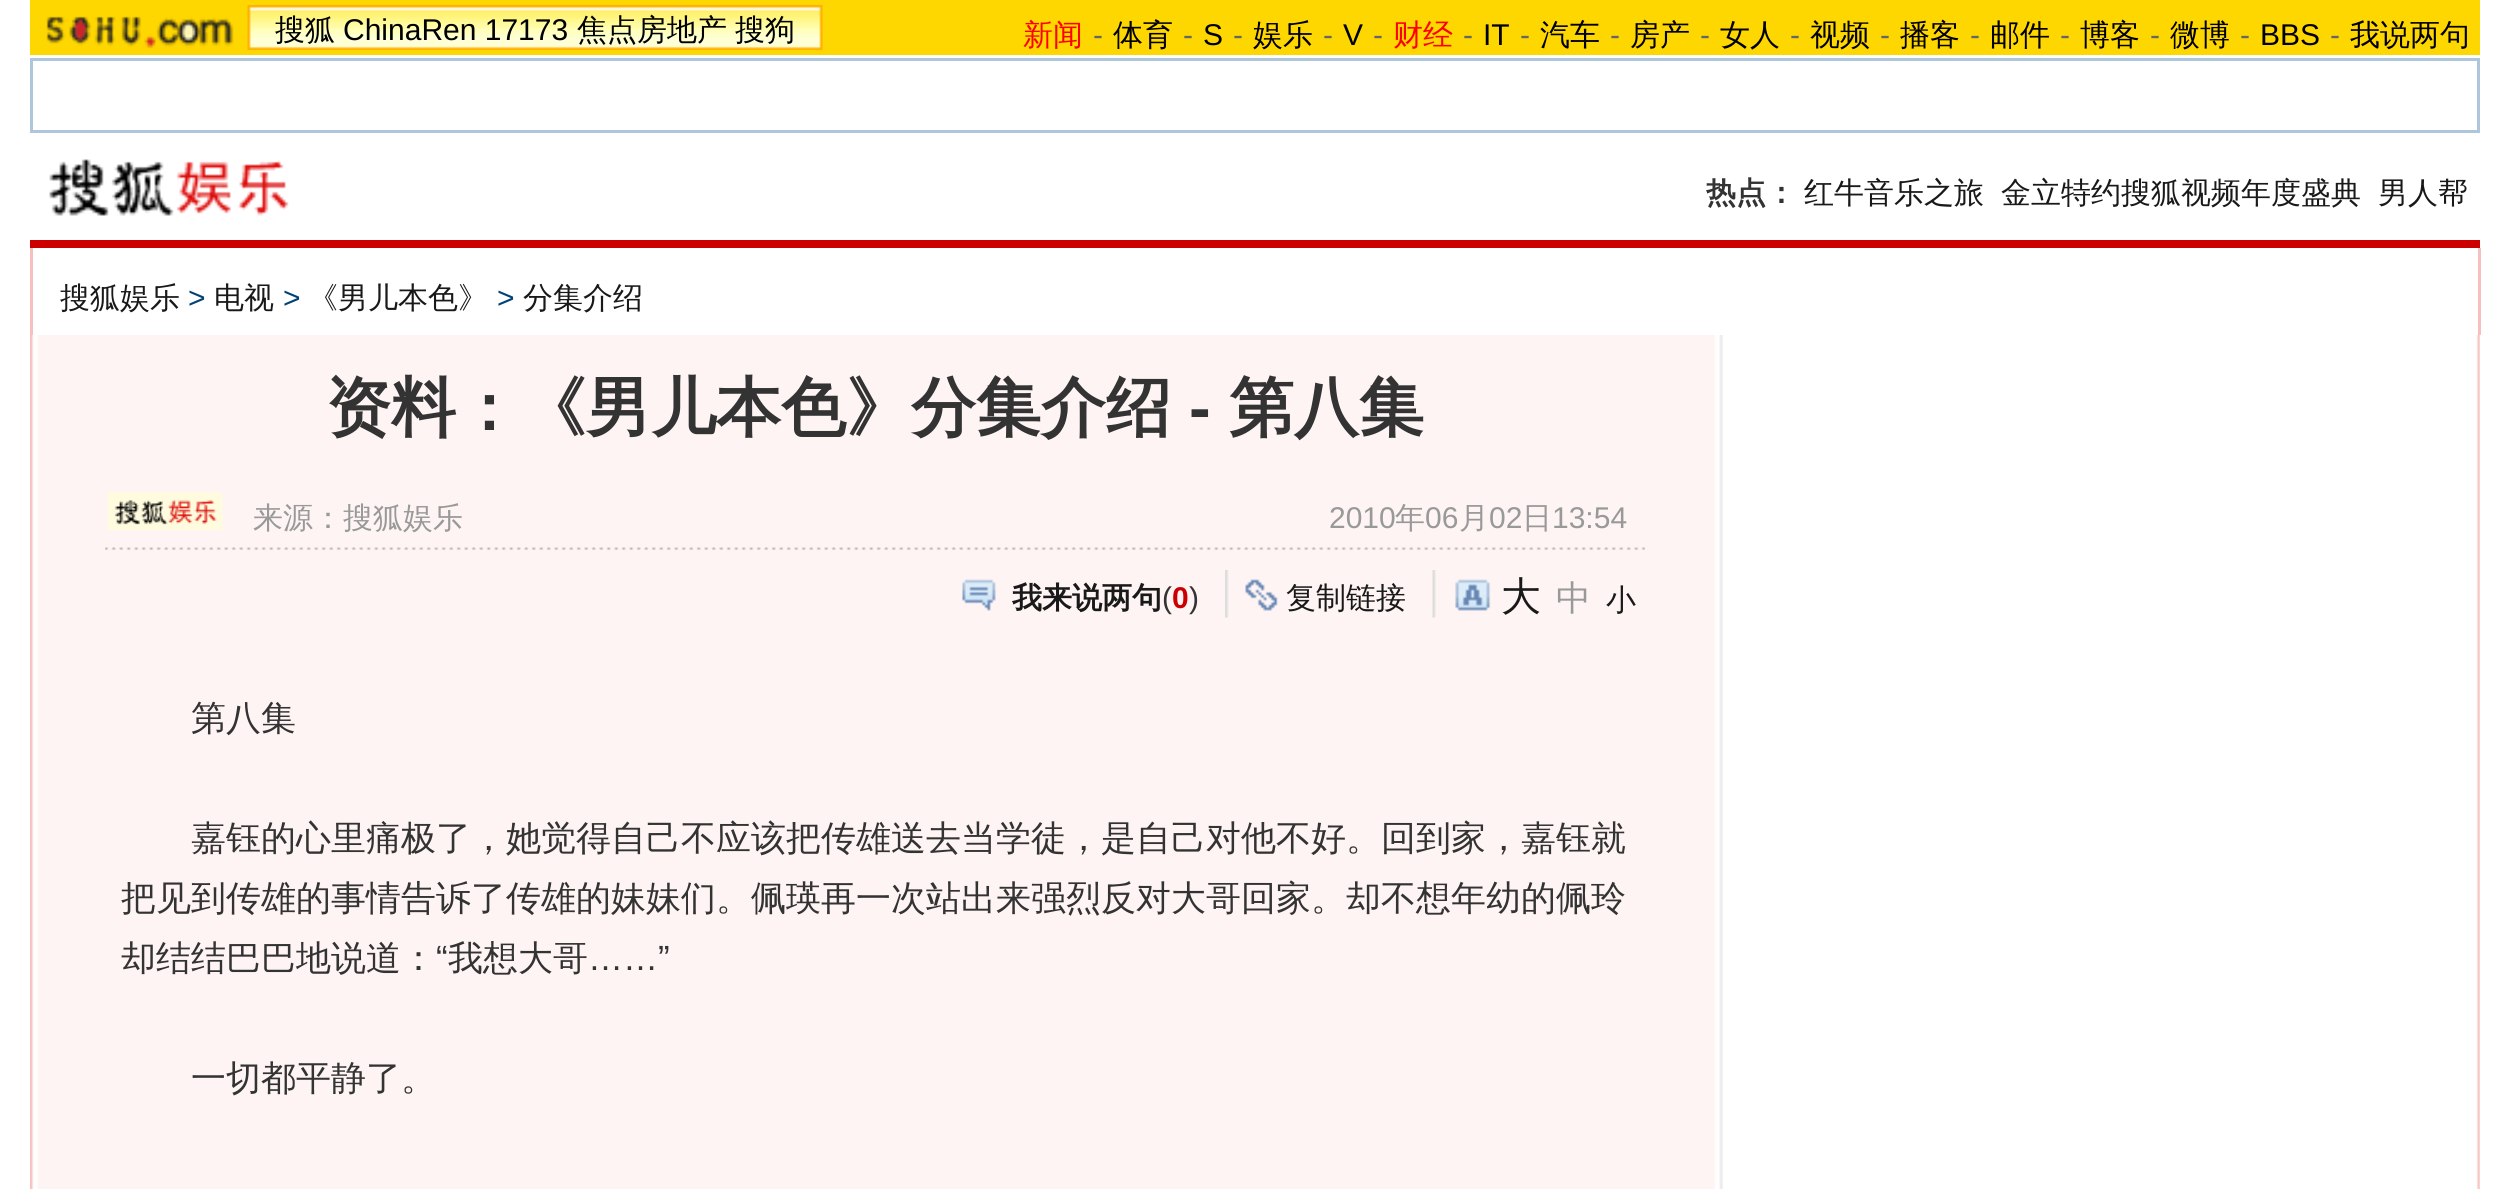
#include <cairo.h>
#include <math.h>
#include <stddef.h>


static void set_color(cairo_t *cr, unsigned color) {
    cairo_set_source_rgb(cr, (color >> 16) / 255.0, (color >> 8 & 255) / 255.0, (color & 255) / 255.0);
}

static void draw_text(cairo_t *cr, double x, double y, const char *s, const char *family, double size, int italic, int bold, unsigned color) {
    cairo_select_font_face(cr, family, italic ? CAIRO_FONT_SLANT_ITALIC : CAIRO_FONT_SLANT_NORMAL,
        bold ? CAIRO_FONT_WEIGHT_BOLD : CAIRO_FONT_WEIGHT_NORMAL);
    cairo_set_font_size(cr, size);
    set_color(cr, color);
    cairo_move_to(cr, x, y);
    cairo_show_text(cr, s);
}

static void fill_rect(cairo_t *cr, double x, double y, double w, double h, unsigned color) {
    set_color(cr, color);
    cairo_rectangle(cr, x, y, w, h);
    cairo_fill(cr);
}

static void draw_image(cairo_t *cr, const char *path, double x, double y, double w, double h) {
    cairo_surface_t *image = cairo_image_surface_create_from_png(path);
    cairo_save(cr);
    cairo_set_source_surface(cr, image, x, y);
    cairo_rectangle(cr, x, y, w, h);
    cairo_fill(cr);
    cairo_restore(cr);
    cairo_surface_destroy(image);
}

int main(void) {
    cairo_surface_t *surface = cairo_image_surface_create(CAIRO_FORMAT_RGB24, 2509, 1189);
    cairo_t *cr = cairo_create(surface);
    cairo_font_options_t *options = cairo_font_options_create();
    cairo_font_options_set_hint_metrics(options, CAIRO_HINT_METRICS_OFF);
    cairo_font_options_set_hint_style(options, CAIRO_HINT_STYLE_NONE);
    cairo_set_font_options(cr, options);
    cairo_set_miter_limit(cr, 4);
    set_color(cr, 0xFFFFFF);
    cairo_paint(cr);
    fill_rect(cr, 30, 0, 2450, 55, 0xFFD700);
    draw_image(cr, "assets/img1.png", 46, 16, 188, 33);
    draw_image(cr, "assets/img2.png", 247, 5, 576, 45);
    draw_text(cr, 275, 40, "搜狐", "WenQuanYi Zen Hei Medium", 30, 0, 0, 0x000000);
    draw_text(cr, 343, 40, "ChinaRen 17173", "Liberation Sans", 30, 0, 0, 0x000000);
    draw_text(cr, 577, 40, "焦点房地产", "WenQuanYi Zen Hei Medium", 30, 0, 0, 0x000000);
    draw_text(cr, 735, 40, "搜狗", "WenQuanYi Zen Hei Medium", 30, 0, 0, 0x000000);
    draw_text(cr, 1023, 45, "新闻", "WenQuanYi Zen Hei Medium", 30, 0, 0, 0xFF0000);
    draw_text(cr, 1093, 45, "-", "Liberation Sans", 30, 0, 0, 0x666666);
    draw_text(cr, 1113, 45, "体育", "WenQuanYi Zen Hei Medium", 30, 0, 0, 0x000000);
    draw_text(cr, 1183, 45, "-", "Liberation Sans", 30, 0, 0, 0x666666);
    draw_text(cr, 1203, 45, "S", "Liberation Sans", 30, 0, 0, 0x000000);
    draw_text(cr, 1233, 45, "-", "Liberation Sans", 30, 0, 0, 0x666666);
    draw_text(cr, 1253, 45, "娱乐", "WenQuanYi Zen Hei Medium", 30, 0, 0, 0x000000);
    draw_text(cr, 1323, 45, "-", "Liberation Sans", 30, 0, 0, 0x666666);
    draw_text(cr, 1343, 45, "V", "Liberation Sans", 30, 0, 0, 0x000000);
    draw_text(cr, 1373, 45, "-", "Liberation Sans", 30, 0, 0, 0x666666);
    draw_text(cr, 1393, 45, "财经", "WenQuanYi Zen Hei Medium", 30, 0, 0, 0xFF0000);
    draw_text(cr, 1463, 45, "-", "Liberation Sans", 30, 0, 0, 0x666666);
    draw_text(cr, 1483, 45, "IT", "Liberation Sans", 30, 0, 0, 0x000000);
    draw_text(cr, 1520, 45, "-", "Liberation Sans", 30, 0, 0, 0x666666);
    draw_text(cr, 1540, 45, "汽车", "WenQuanYi Zen Hei Medium", 30, 0, 0, 0x000000);
    draw_text(cr, 1610, 45, "-", "Liberation Sans", 30, 0, 0, 0x666666);
    draw_text(cr, 1630, 45, "房产", "WenQuanYi Zen Hei Medium", 30, 0, 0, 0x000000);
    draw_text(cr, 1700, 45, "-", "Liberation Sans", 30, 0, 0, 0x666666);
    draw_text(cr, 1720, 45, "女人", "WenQuanYi Zen Hei Medium", 30, 0, 0, 0x000000);
    draw_text(cr, 1790, 45, "-", "Liberation Sans", 30, 0, 0, 0x666666);
    draw_text(cr, 1810, 45, "视频", "WenQuanYi Zen Hei Medium", 30, 0, 0, 0x000000);
    draw_text(cr, 1880, 45, "-", "Liberation Sans", 30, 0, 0, 0x666666);
    draw_text(cr, 1900, 45, "播客", "WenQuanYi Zen Hei Medium", 30, 0, 0, 0x000000);
    draw_text(cr, 1970, 45, "-", "Liberation Sans", 30, 0, 0, 0x666666);
    draw_text(cr, 1990, 45, "邮件", "WenQuanYi Zen Hei Medium", 30, 0, 0, 0x000000);
    draw_text(cr, 2060, 45, "-", "Liberation Sans", 30, 0, 0, 0x666666);
    draw_text(cr, 2080, 45, "博客", "WenQuanYi Zen Hei Medium", 30, 0, 0, 0x000000);
    draw_text(cr, 2150, 45, "-", "Liberation Sans", 30, 0, 0, 0x666666);
    draw_text(cr, 2170, 45, "微博", "WenQuanYi Zen Hei Medium", 30, 0, 0, 0x000000);
    draw_text(cr, 2240, 45, "-", "Liberation Sans", 30, 0, 0, 0x666666);
    draw_text(cr, 2260, 45, "BBS", "Liberation Sans", 30, 0, 0, 0x000000);
    draw_text(cr, 2330, 45, "-", "Liberation Sans", 30, 0, 0, 0x666666);
    draw_text(cr, 2350, 45, "我说两句", "WenQuanYi Zen Hei Medium", 30, 0, 0, 0x000000);
    cairo_rectangle(cr, 31.5, 59.5, 2447, 72);
    set_color(cr, 0xAFC5DB);
    cairo_set_line_width(cr, 3);
    cairo_stroke(cr);
    draw_image(cr, "assets/img3.png", 49, 159, 240, 57);
    draw_text(cr, 1706, 203, "热点：", "WenQuanYi Zen Hei", 30, 0, 1, 0x333333);
    draw_text(cr, 1804, 203, "红牛音乐之旅", "WenQuanYi Zen Hei Medium", 30, 0, 0, 0x191919);
    draw_text(cr, 2001, 203, "金立特约搜狐视频年度盛典", "WenQuanYi Zen Hei Medium", 30, 0, 0, 0x191919);
    draw_text(cr, 2378, 203, "男人帮", "WenQuanYi Zen Hei Medium", 30, 0, 0, 0x191919);
    fill_rect(cr, 30, 240, 2450, 8, 0xCC0000);
    fill_rect(cr, 2478, 248, 3, 87, 0xF7C0C0);
    fill_rect(cr, 30, 248, 3, 87, 0xF7C0C0);
    draw_text(cr, 60, 308, "搜狐娱乐", "WenQuanYi Zen Hei Medium", 30, 0, 0, 0x191919);
    draw_text(cr, 188, 308, ">", "Liberation Sans", 30, 0, 0, 0x004276);
    draw_text(cr, 214, 308, "电视", "WenQuanYi Zen Hei Medium", 30, 0, 0, 0x191919);
    draw_text(cr, 283, 308, ">", "Liberation Sans", 30, 0, 0, 0x004276);
    draw_text(cr, 308, 308, "《男儿本色》", "WenQuanYi Zen Hei Medium", 30, 0, 0, 0x191919);
    draw_text(cr, 497, 308, ">", "Liberation Sans", 30, 0, 0, 0x004276);
    draw_text(cr, 523, 308, "分集介绍", "WenQuanYi Zen Hei Medium", 30, 0, 0, 0x191919);
    draw_image(cr, "assets/img4.png", 30, 335, 2450, 854);
    draw_text(cr, 326, 430, "资料：《男儿本色》分集介绍", "WenQuanYi Zen Hei", 65, 0, 1, 0x333333);
    draw_text(cr, 1189, 430, "-", "Liberation Sans", 65, 0, 1, 0x333333);
    draw_text(cr, 1229, 430, "第八集", "WenQuanYi Zen Hei", 65, 0, 1, 0x333333);
    draw_image(cr, "assets/img5.png", 107, 492, 116, 38);
    draw_text(cr, 253, 528, "来源：搜狐娱乐", "WenQuanYi Zen Hei Medium", 30, 0, 0, 0x999999);
    draw_text(cr, 1329, 528, "2010", "Liberation Sans", 30, 0, 0, 0x999999);
    draw_text(cr, 1395, 528, "年", "WenQuanYi Zen Hei Medium", 30, 0, 0, 0x999999);
    draw_text(cr, 1425, 528, "06", "Liberation Sans", 30, 0, 0, 0x999999);
    draw_text(cr, 1459, 528, "月", "WenQuanYi Zen Hei Medium", 30, 0, 0, 0x999999);
    draw_text(cr, 1489, 528, "02", "Liberation Sans", 30, 0, 0, 0x999999);
    draw_text(cr, 1522, 528, "日", "WenQuanYi Zen Hei Medium", 30, 0, 0, 0x999999);
    draw_text(cr, 1552, 528, "13:54", "Liberation Sans", 30, 0, 0, 0x999999);
    draw_image(cr, "assets/img6.png", 105, 547, 1540, 3);
    draw_image(cr, "assets/img7.png", 962, 579, 34, 32);
    draw_text(cr, 1012, 608, "我来说两句", "WenQuanYi Zen Hei", 30, 0, 1, 0x191919);
    draw_text(cr, 1162, 608, "(", "Liberation Sans", 30, 0, 0, 0x333333);
    draw_text(cr, 1172, 608, "0", "Liberation Sans", 30, 0, 1, 0xCC0000);
    draw_text(cr, 1189, 608, ")", "Liberation Sans", 30, 0, 0, 0x333333);
    draw_image(cr, "assets/img8.png", 1225, 570, 53, 48);
    draw_text(cr, 1286, 608, "复制链接", "WenQuanYi Zen Hei Medium", 30, 0, 0, 0x191919);
    draw_image(cr, "assets/img9.png", 1432, 570, 59, 48);
    draw_text(cr, 1501, 610, "大", "WenQuanYi Zen Hei Medium", 40, 0, 0, 0x191919);
    draw_text(cr, 1556, 610, "中", "WenQuanYi Zen Hei Medium", 35, 0, 0, 0x999999);
    draw_text(cr, 1606, 610, "小", "WenQuanYi Zen Hei Medium", 30, 0, 0, 0x191919);
    draw_text(cr, 191, 730, "第八集", "WenQuanYi Zen Hei Medium", 35, 0, 0, 0x333333);
    draw_text(cr, 191, 850, "嘉钰的心里痛极了，她觉得自己不应该把传雄送去当学徒，是自己对他不好。回到家，嘉钰就", "WenQuanYi Zen Hei Medium", 35, 0, 0, 0x333333);
    draw_text(cr, 121, 910, "把见到传雄的事情告诉了传雄的妹妹们。佩瑛再一次站出来强烈反对大哥回家。却不想年幼的佩玲", "WenQuanYi Zen Hei Medium", 35, 0, 0, 0x333333);
    draw_text(cr, 121, 970, "却结结巴巴地说道：", "WenQuanYi Zen Hei Medium", 35, 0, 0, 0x333333);
    draw_text(cr, 436, 970, "“", "Liberation Sans", 35, 0, 0, 0x333333);
    draw_text(cr, 448, 970, "我想大哥", "WenQuanYi Zen Hei Medium", 35, 0, 0, 0x333333);
    draw_text(cr, 588, 970, "……”", "Liberation Sans", 35, 0, 0, 0x333333);
    draw_text(cr, 191, 1090, "一切都平静了。", "WenQuanYi Zen Hei Medium", 35, 0, 0, 0x333333);
    cairo_surface_write_to_png(surface, "output.png");
    cairo_font_options_destroy(options);
    cairo_destroy(cr);
    cairo_surface_destroy(surface);
    return 0;
}
